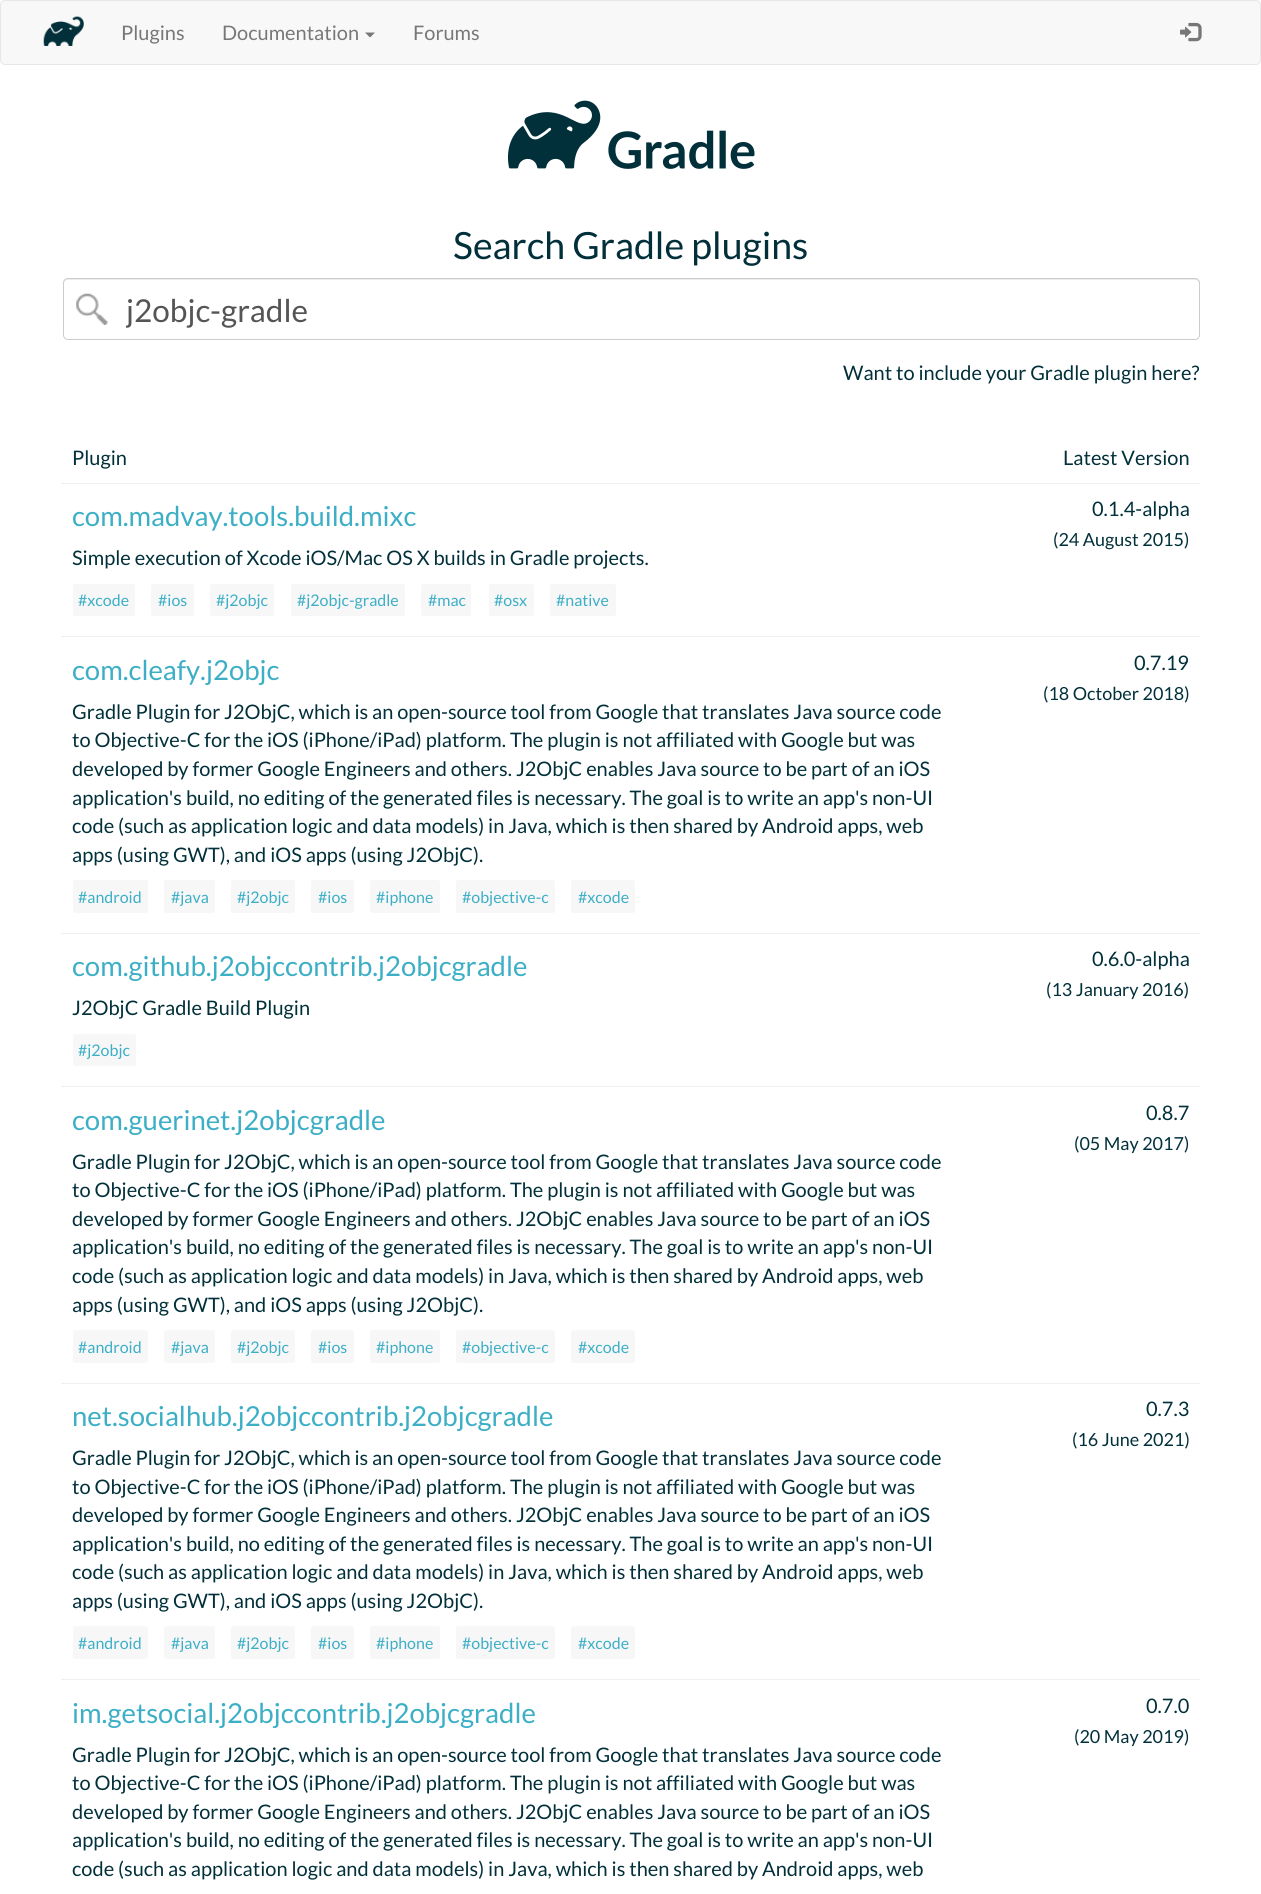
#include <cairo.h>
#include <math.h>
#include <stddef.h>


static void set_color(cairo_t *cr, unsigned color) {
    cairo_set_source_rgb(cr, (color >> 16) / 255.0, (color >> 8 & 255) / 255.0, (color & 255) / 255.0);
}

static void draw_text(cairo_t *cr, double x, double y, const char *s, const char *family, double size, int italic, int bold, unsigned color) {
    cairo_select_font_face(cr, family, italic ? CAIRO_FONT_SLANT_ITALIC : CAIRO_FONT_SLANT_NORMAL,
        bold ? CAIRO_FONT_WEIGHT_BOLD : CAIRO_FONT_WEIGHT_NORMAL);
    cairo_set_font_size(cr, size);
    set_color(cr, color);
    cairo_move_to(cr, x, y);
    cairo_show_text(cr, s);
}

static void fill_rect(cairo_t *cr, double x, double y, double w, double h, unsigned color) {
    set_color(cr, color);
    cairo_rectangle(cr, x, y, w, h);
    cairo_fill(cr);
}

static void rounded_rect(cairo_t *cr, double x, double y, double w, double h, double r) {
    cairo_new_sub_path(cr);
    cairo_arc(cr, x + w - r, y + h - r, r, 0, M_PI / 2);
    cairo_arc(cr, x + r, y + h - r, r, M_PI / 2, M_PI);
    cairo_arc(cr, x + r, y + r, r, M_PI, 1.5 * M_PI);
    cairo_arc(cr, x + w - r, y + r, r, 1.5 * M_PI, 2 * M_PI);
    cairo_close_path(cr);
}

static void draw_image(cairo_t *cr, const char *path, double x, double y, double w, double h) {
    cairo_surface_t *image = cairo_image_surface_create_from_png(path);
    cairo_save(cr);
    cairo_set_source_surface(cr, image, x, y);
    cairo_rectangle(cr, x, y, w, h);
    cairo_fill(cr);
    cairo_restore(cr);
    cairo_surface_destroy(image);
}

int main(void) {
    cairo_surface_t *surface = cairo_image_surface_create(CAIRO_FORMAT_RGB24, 1261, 1894);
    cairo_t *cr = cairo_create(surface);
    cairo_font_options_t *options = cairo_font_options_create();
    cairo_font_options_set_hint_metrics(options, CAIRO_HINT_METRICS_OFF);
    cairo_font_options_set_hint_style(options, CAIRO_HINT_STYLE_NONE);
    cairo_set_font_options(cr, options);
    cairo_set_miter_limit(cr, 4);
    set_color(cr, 0xFFFFFF);
    cairo_paint(cr);
    set_color(cr, 0xF8F8F8);
    rounded_rect(cr, 0.5, 0.5, 1260, 64, 4.5);
    cairo_fill_preserve(cr);
    set_color(cr, 0xE7E7E7);
    cairo_set_line_width(cr, 1);
    cairo_stroke(cr);
    draw_image(cr, "assets/img1.png", 43, 16, 41, 30);
    draw_text(cr, 121, 40, "Plugins", "Lato", 20, 0, 0, 0x777777);
    draw_text(cr, 222, 40, "Documentation", "Lato", 20, 0, 0, 0x777777);
    cairo_new_path(cr);
    cairo_move_to(cr, 365, 32.5);
    cairo_line_to(cr, 375, 32.5);
    cairo_line_to(cr, 370, 37.5);
    cairo_close_path(cr);
    cairo_fill(cr);
    draw_text(cr, 413, 40, "Forums", "Lato", 20, 0, 0, 0x777777);
    draw_image(cr, "assets/img2.png", 1180, 22, 22, 20);
    draw_image(cr, "assets/img3.png", 507, 100, 248, 69);
    draw_text(cr, 453, 259, "Search Gradle plugins", "Lato", 37.5, 0, 0, 0x02303A);
    draw_image(cr, "assets/img4.png", 76, 293, 32, 32);
    set_color(cr, 0xECECEC);
    cairo_new_path(cr);
    cairo_move_to(cr, 68, 280);
    cairo_line_to(cr, 1195, 280);
    cairo_curve_to(cr, 1197, 280, 1199, 282, 1199, 284);
    cairo_curve_to(cr, 1199, 281, 1198, 279, 1195, 279);
    cairo_line_to(cr, 68, 279);
    cairo_curve_to(cr, 65, 279, 64, 281, 64, 284);
    cairo_curve_to(cr, 64, 282, 65, 280, 68, 280);
    cairo_close_path(cr);
    cairo_fill(cr);
    rounded_rect(cr, 63.5, 278.5, 1136, 61, 4.5);
    set_color(cr, 0xCCCCCC);
    cairo_stroke(cr);
    cairo_save(cr);
    cairo_rectangle(cr, 126, 290, 1058, 38);
    cairo_clip(cr);
    draw_text(cr, 126, 322, "j2objc-gradle", "Lato", 31.5, 0, 0, 0x555555);
    cairo_restore(cr);
    draw_text(cr, 843, 380, "Want to include your Gradle plugin here?", "Lato", 20, 0, 0, 0x02303A);
    draw_text(cr, 72, 465, "Plugin", "Lato", 20, 0, 0, 0x02303A);
    draw_text(cr, 1063, 465, "Latest Version", "Lato", 20, 0, 0, 0x02303A);
    fill_rect(cr, 61, 483, 1139, 1, 0xEFEFEF);
    draw_text(cr, 72, 526, "com.madvay.tools.build.mixc", "Lato", 27.5, 0, 0, 0x3CAFC6);
    draw_text(cr, 72, 565, "Simple execution of Xcode iOS/Mac OS X builds in Gradle projects.", "Lato", 20, 0, 0, 0x02303A);
    set_color(cr, 0xF7F7F8);
    rounded_rect(cr, 73, 584, 62, 32, 2.5);
    cairo_fill(cr);
    draw_text(cr, 78, 606, "#xcode", "Lato", 16, 0, 0, 0x3CAFC6);
    set_color(cr, 0xF7F7F8);
    rounded_rect(cr, 151, 584, 43, 32, 2.5);
    cairo_fill(cr);
    draw_text(cr, 158, 606, "#ios", "Lato", 16, 0, 0, 0x3CAFC6);
    set_color(cr, 0xF7F7F8);
    rounded_rect(cr, 210, 584, 64, 32, 2.5);
    cairo_fill(cr);
    draw_text(cr, 216, 606, "#j2objc", "Lato", 16, 0, 0, 0x3CAFC6);
    set_color(cr, 0xF7F7F8);
    rounded_rect(cr, 291, 584, 114, 32, 2.5);
    cairo_fill(cr);
    draw_text(cr, 297, 606, "#j2objc-gradle", "Lato", 16, 0, 0, 0x3CAFC6);
    set_color(cr, 0xF7F7F8);
    rounded_rect(cr, 421, 584, 50, 32, 2.5);
    cairo_fill(cr);
    draw_text(cr, 428, 606, "#mac", "Lato", 16, 0, 0, 0x3CAFC6);
    set_color(cr, 0xF7F7F8);
    rounded_rect(cr, 489, 584, 45, 32, 2.5);
    cairo_fill(cr);
    draw_text(cr, 494, 606, "#osx", "Lato", 16, 0, 0, 0x3CAFC6);
    set_color(cr, 0xF7F7F8);
    rounded_rect(cr, 550, 584, 66, 32, 2.5);
    cairo_fill(cr);
    draw_text(cr, 556, 606, "#native", "Lato", 16, 0, 0, 0x3CAFC6);
    draw_text(cr, 1092, 516, "0.1.4-alpha", "Lato", 20, 0, 0, 0x02303A);
    draw_text(cr, 1053, 546, "(24 August 2015)", "Lato", 18, 0, 0, 0x02303A);
    fill_rect(cr, 61, 636, 1139, 1, 0xEFEFEF);
    draw_text(cr, 72, 680, "com.cleafy.j2objc", "Lato", 27.5, 0, 0, 0x3CAFC6);
    draw_text(cr, 72, 719, "Gradle Plugin for J2ObjC, which is an open-source tool from Google that translates Java source code", "Lato", 20, 0, 0, 0x02303A);
    draw_text(cr, 72, 747, "to Objective-C for the iOS (iPhone/iPad) platform. The plugin is not affiliated with Google but was", "Lato", 20, 0, 0, 0x02303A);
    draw_text(cr, 72, 776, "developed by former Google Engineers and others. J2ObjC enables Java source to be part of an iOS", "Lato", 20, 0, 0, 0x02303A);
    draw_text(cr, 72, 805, "application's build, no editing of the generated files is necessary. The goal is to write an app's non-UI", "Lato", 20, 0, 0, 0x02303A);
    draw_text(cr, 72, 833, "code (such as application logic and data models) in Java, which is then shared by Android apps, web", "Lato", 20, 0, 0, 0x02303A);
    draw_text(cr, 72, 862, "apps (using GWT), and iOS apps (using J2ObjC).", "Lato", 20, 0, 0, 0x02303A);
    set_color(cr, 0xF7F7F8);
    rounded_rect(cr, 73, 880, 75, 33, 2.5);
    cairo_fill(cr);
    draw_text(cr, 78, 903, "#android", "Lato", 16, 0, 0, 0x3CAFC6);
    set_color(cr, 0xF7F7F8);
    rounded_rect(cr, 164, 880, 51, 33, 2.5);
    cairo_fill(cr);
    draw_text(cr, 171, 903, "#java", "Lato", 16, 0, 0, 0x3CAFC6);
    set_color(cr, 0xF7F7F8);
    rounded_rect(cr, 231, 880, 64, 33, 2.5);
    cairo_fill(cr);
    draw_text(cr, 237, 903, "#j2objc", "Lato", 16, 0, 0, 0x3CAFC6);
    set_color(cr, 0xF7F7F8);
    rounded_rect(cr, 311, 880, 43, 33, 2.5);
    cairo_fill(cr);
    draw_text(cr, 318, 903, "#ios", "Lato", 16, 0, 0, 0x3CAFC6);
    set_color(cr, 0xF7F7F8);
    rounded_rect(cr, 370, 880, 70, 33, 2.5);
    cairo_fill(cr);
    draw_text(cr, 376, 903, "#iphone", "Lato", 16, 0, 0, 0x3CAFC6);
    set_color(cr, 0xF7F7F8);
    rounded_rect(cr, 456, 880, 99, 33, 2.5);
    cairo_fill(cr);
    draw_text(cr, 462, 903, "#objective-c", "Lato", 16, 0, 0, 0x3CAFC6);
    set_color(cr, 0xF7F7F8);
    rounded_rect(cr, 571, 880, 64, 33, 2.5);
    cairo_fill(cr);
    draw_text(cr, 578, 903, "#xcode", "Lato", 16, 0, 0, 0x3CAFC6);
    draw_text(cr, 1134, 670, "0.7.19", "Lato", 20, 0, 0, 0x02303A);
    draw_text(cr, 1043, 700, "(18 October 2018)", "Lato", 18, 0, 0, 0x02303A);
    fill_rect(cr, 61, 933, 1139, 1, 0xEFEFEF);
    draw_text(cr, 72, 976, "com.github.j2objccontrib.j2objcgradle", "Lato", 27.5, 0, 0, 0x3CAFC6);
    draw_text(cr, 72, 1015, "J2ObjC Gradle Build Plugin", "Lato", 20, 0, 0, 0x02303A);
    set_color(cr, 0xF7F7F8);
    rounded_rect(cr, 73, 1034, 63, 32, 2.5);
    cairo_fill(cr);
    draw_text(cr, 78, 1056, "#j2objc", "Lato", 16, 0, 0, 0x3CAFC6);
    draw_text(cr, 1092, 966, "0.6.0-alpha", "Lato", 20, 0, 0, 0x02303A);
    draw_text(cr, 1046, 996, "(13 January 2016)", "Lato", 18, 0, 0, 0x02303A);
    fill_rect(cr, 61, 1086, 1139, 1, 0xEFEFEF);
    draw_text(cr, 72, 1130, "com.guerinet.j2objcgradle", "Lato", 27.5, 0, 0, 0x3CAFC6);
    draw_text(cr, 72, 1169, "Gradle Plugin for J2ObjC, which is an open-source tool from Google that translates Java source code", "Lato", 20, 0, 0, 0x02303A);
    draw_text(cr, 72, 1197, "to Objective-C for the iOS (iPhone/iPad) platform. The plugin is not affiliated with Google but was", "Lato", 20, 0, 0, 0x02303A);
    draw_text(cr, 72, 1226, "developed by former Google Engineers and others. J2ObjC enables Java source to be part of an iOS", "Lato", 20, 0, 0, 0x02303A);
    draw_text(cr, 72, 1254, "application's build, no editing of the generated files is necessary. The goal is to write an app's non-UI", "Lato", 20, 0, 0, 0x02303A);
    draw_text(cr, 72, 1283, "code (such as application logic and data models) in Java, which is then shared by Android apps, web", "Lato", 20, 0, 0, 0x02303A);
    draw_text(cr, 72, 1312, "apps (using GWT), and iOS apps (using J2ObjC).", "Lato", 20, 0, 0, 0x02303A);
    set_color(cr, 0xF7F7F8);
    rounded_rect(cr, 73, 1330, 75, 33, 2.5);
    cairo_fill(cr);
    draw_text(cr, 78, 1353, "#android", "Lato", 16, 0, 0, 0x3CAFC6);
    set_color(cr, 0xF7F7F8);
    rounded_rect(cr, 164, 1330, 51, 33, 2.5);
    cairo_fill(cr);
    draw_text(cr, 171, 1353, "#java", "Lato", 16, 0, 0, 0x3CAFC6);
    set_color(cr, 0xF7F7F8);
    rounded_rect(cr, 231, 1330, 64, 33, 2.5);
    cairo_fill(cr);
    draw_text(cr, 237, 1353, "#j2objc", "Lato", 16, 0, 0, 0x3CAFC6);
    set_color(cr, 0xF7F7F8);
    rounded_rect(cr, 311, 1330, 43, 33, 2.5);
    cairo_fill(cr);
    draw_text(cr, 318, 1353, "#ios", "Lato", 16, 0, 0, 0x3CAFC6);
    set_color(cr, 0xF7F7F8);
    rounded_rect(cr, 370, 1330, 70, 33, 2.5);
    cairo_fill(cr);
    draw_text(cr, 376, 1353, "#iphone", "Lato", 16, 0, 0, 0x3CAFC6);
    set_color(cr, 0xF7F7F8);
    rounded_rect(cr, 456, 1330, 99, 33, 2.5);
    cairo_fill(cr);
    draw_text(cr, 462, 1353, "#objective-c", "Lato", 16, 0, 0, 0x3CAFC6);
    set_color(cr, 0xF7F7F8);
    rounded_rect(cr, 571, 1330, 64, 33, 2.5);
    cairo_fill(cr);
    draw_text(cr, 578, 1353, "#xcode", "Lato", 16, 0, 0, 0x3CAFC6);
    draw_text(cr, 1146, 1120, "0.8.7", "Lato", 20, 0, 0, 0x02303A);
    draw_text(cr, 1074, 1150, "(05 May 2017)", "Lato", 18, 0, 0, 0x02303A);
    fill_rect(cr, 61, 1383, 1139, 1, 0xEFEFEF);
    draw_text(cr, 72, 1426, "net.socialhub.j2objccontrib.j2objcgradle", "Lato", 27.5, 0, 0, 0x3CAFC6);
    draw_text(cr, 72, 1465, "Gradle Plugin for J2ObjC, which is an open-source tool from Google that translates Java source code", "Lato", 20, 0, 0, 0x02303A);
    draw_text(cr, 72, 1494, "to Objective-C for the iOS (iPhone/iPad) platform. The plugin is not affiliated with Google but was", "Lato", 20, 0, 0, 0x02303A);
    draw_text(cr, 72, 1522, "developed by former Google Engineers and others. J2ObjC enables Java source to be part of an iOS", "Lato", 20, 0, 0, 0x02303A);
    draw_text(cr, 72, 1551, "application's build, no editing of the generated files is necessary. The goal is to write an app's non-UI", "Lato", 20, 0, 0, 0x02303A);
    draw_text(cr, 72, 1579, "code (such as application logic and data models) in Java, which is then shared by Android apps, web", "Lato", 20, 0, 0, 0x02303A);
    draw_text(cr, 72, 1608, "apps (using GWT), and iOS apps (using J2ObjC).", "Lato", 20, 0, 0, 0x02303A);
    set_color(cr, 0xF7F7F8);
    rounded_rect(cr, 73, 1626, 75, 33, 2.5);
    cairo_fill(cr);
    draw_text(cr, 78, 1649, "#android", "Lato", 16, 0, 0, 0x3CAFC6);
    set_color(cr, 0xF7F7F8);
    rounded_rect(cr, 164, 1626, 51, 33, 2.5);
    cairo_fill(cr);
    draw_text(cr, 171, 1649, "#java", "Lato", 16, 0, 0, 0x3CAFC6);
    set_color(cr, 0xF7F7F8);
    rounded_rect(cr, 231, 1626, 64, 33, 2.5);
    cairo_fill(cr);
    draw_text(cr, 237, 1649, "#j2objc", "Lato", 16, 0, 0, 0x3CAFC6);
    set_color(cr, 0xF7F7F8);
    rounded_rect(cr, 311, 1626, 43, 33, 2.5);
    cairo_fill(cr);
    draw_text(cr, 318, 1649, "#ios", "Lato", 16, 0, 0, 0x3CAFC6);
    set_color(cr, 0xF7F7F8);
    rounded_rect(cr, 370, 1626, 70, 33, 2.5);
    cairo_fill(cr);
    draw_text(cr, 376, 1649, "#iphone", "Lato", 16, 0, 0, 0x3CAFC6);
    set_color(cr, 0xF7F7F8);
    rounded_rect(cr, 456, 1626, 99, 33, 2.5);
    cairo_fill(cr);
    draw_text(cr, 462, 1649, "#objective-c", "Lato", 16, 0, 0, 0x3CAFC6);
    set_color(cr, 0xF7F7F8);
    rounded_rect(cr, 571, 1626, 64, 33, 2.5);
    cairo_fill(cr);
    draw_text(cr, 578, 1649, "#xcode", "Lato", 16, 0, 0, 0x3CAFC6);
    draw_text(cr, 1146, 1416, "0.7.3", "Lato", 20, 0, 0, 0x02303A);
    draw_text(cr, 1072, 1446, "(16 June 2021)", "Lato", 18, 0, 0, 0x02303A);
    fill_rect(cr, 61, 1679, 1139, 1, 0xEFEFEF);
    draw_text(cr, 72, 1723, "im.getsocial.j2objccontrib.j2objcgradle", "Lato", 27.5, 0, 0, 0x3CAFC6);
    draw_text(cr, 72, 1762, "Gradle Plugin for J2ObjC, which is an open-source tool from Google that translates Java source code", "Lato", 20, 0, 0, 0x02303A);
    draw_text(cr, 72, 1790, "to Objective-C for the iOS (iPhone/iPad) platform. The plugin is not affiliated with Google but was", "Lato", 20, 0, 0, 0x02303A);
    draw_text(cr, 72, 1819, "developed by former Google Engineers and others. J2ObjC enables Java source to be part of an iOS", "Lato", 20, 0, 0, 0x02303A);
    draw_text(cr, 72, 1847, "application's build, no editing of the generated files is necessary. The goal is to write an app's non-UI", "Lato", 20, 0, 0, 0x02303A);
    draw_text(cr, 72, 1876, "code (such as application logic and data models) in Java, which is then shared by Android apps, web", "Lato", 20, 0, 0, 0x02303A);
    draw_text(cr, 1146, 1713, "0.7.0", "Lato", 20, 0, 0, 0x02303A);
    draw_text(cr, 1074, 1743, "(20 May 2019)", "Lato", 18, 0, 0, 0x02303A);
    cairo_surface_write_to_png(surface, "output.png");
    cairo_font_options_destroy(options);
    cairo_destroy(cr);
    cairo_surface_destroy(surface);
    return 0;
}
